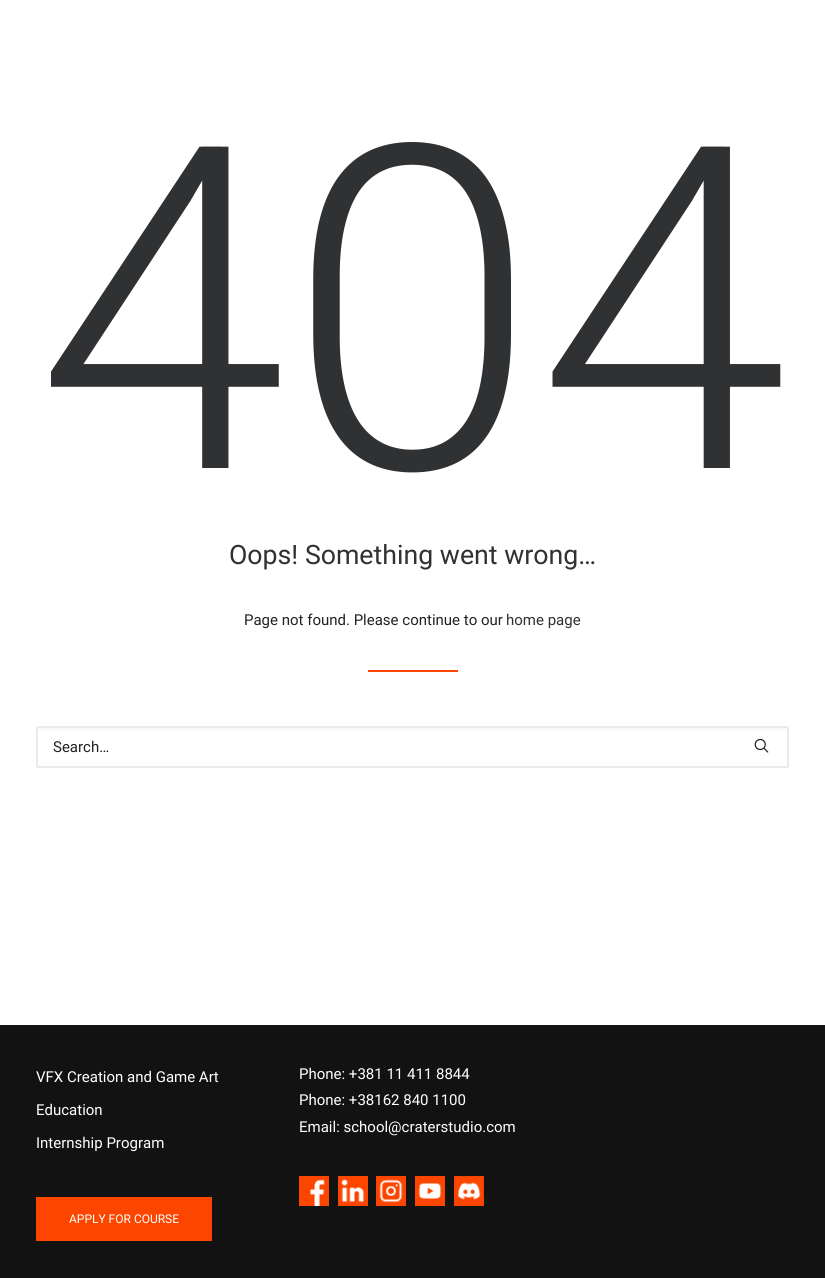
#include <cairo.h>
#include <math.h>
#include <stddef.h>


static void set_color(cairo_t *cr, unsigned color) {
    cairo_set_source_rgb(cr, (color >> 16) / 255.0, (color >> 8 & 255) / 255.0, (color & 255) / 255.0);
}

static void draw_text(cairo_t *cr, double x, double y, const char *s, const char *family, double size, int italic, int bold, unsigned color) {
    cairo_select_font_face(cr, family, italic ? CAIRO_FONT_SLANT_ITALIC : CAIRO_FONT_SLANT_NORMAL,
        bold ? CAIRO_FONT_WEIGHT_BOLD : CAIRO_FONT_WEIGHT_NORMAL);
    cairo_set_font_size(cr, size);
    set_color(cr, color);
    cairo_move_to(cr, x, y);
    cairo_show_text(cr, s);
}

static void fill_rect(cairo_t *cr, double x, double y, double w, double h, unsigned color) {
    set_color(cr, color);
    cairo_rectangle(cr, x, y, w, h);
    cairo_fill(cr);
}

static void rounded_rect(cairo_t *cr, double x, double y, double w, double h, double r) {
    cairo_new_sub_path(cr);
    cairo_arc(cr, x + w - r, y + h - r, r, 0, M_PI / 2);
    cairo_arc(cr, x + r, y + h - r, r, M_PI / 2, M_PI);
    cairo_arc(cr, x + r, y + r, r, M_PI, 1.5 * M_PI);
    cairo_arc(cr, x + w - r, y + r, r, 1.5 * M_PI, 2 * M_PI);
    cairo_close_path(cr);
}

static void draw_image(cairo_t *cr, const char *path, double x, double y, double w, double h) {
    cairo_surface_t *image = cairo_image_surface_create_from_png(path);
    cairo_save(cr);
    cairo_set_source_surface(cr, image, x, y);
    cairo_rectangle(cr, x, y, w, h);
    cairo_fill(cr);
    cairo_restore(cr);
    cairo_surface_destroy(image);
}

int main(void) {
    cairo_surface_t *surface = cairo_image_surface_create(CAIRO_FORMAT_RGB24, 825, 1278);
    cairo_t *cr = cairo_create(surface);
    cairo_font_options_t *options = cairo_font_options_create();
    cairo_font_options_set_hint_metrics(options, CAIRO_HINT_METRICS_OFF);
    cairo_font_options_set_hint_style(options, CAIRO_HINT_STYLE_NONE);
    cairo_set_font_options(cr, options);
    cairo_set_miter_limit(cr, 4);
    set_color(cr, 0xFFFFFF);
    cairo_paint(cr);
    draw_text(cr, 36, 468, "404", "Roboto Light", 452, 0, 0, 0x303133);
    draw_text(cr, 229, 564, "Oops! Something went wrong…", "Roboto", 26.7, 0, 0, 0x303133);
    draw_text(cr, 244, 625, "Page not found. Please continue to our", "Roboto", 15, 0, 0, 0x222222);
    draw_text(cr, 506, 625, "home page", "Roboto", 15, 0, 0, 0x303133);
    fill_rect(cr, 368, 670, 90, 2, 0xFC4600);
    fill_rect(cr, 38, 728, 749, 2, 0xF9F9F9);
    rounded_rect(cr, 37, 727, 751, 40, 1);
    set_color(cr, 0xEAEAEA);
    cairo_stroke(cr);
    draw_text(cr, 53, 752, "Search…", "Roboto", 15, 0, 0, 0x222222);
    draw_image(cr, "assets/img1.png", 754, 738, 15, 15);
    fill_rect(cr, 0, 1025, 825, 253, 0x121212);
    draw_text(cr, 36, 1082, "VFX Creation and Game Art", "Roboto", 15, 0, 0, 0xFFFFFF);
    draw_text(cr, 36, 1115, "Education", "Roboto", 15, 0, 0, 0xFFFFFF);
    draw_text(cr, 36, 1148, "Internship Program", "Roboto", 15, 0, 0, 0xFFFFFF);
    fill_rect(cr, 36, 1197, 176, 44, 0xFC4600);
    draw_text(cr, 69, 1223, "APPLY FOR COURSE", "Roboto", 12, 0, 0, 0xFFFFFF);
    draw_text(cr, 299, 1079, "Phone: +381 11 411 8844", "Roboto", 15, 0, 0, 0xFFFFFF);
    draw_text(cr, 299, 1105, "Phone: +38162 840 1100", "Roboto", 15, 0, 0, 0xFFFFFF);
    draw_text(cr, 299, 1132, "Email: school@craterstudio.com", "Roboto", 15, 0, 0, 0xFFFFFF);
    draw_image(cr, "assets/img2.png", 299, 1176, 30, 30);
    draw_image(cr, "assets/img3.png", 338, 1176, 30, 30);
    draw_image(cr, "assets/img4.png", 376, 1176, 30, 30);
    draw_image(cr, "assets/img5.png", 415, 1176, 30, 30);
    draw_image(cr, "assets/img6.png", 454, 1176, 30, 30);
    cairo_surface_write_to_png(surface, "output.png");
    cairo_font_options_destroy(options);
    cairo_destroy(cr);
    cairo_surface_destroy(surface);
    return 0;
}
